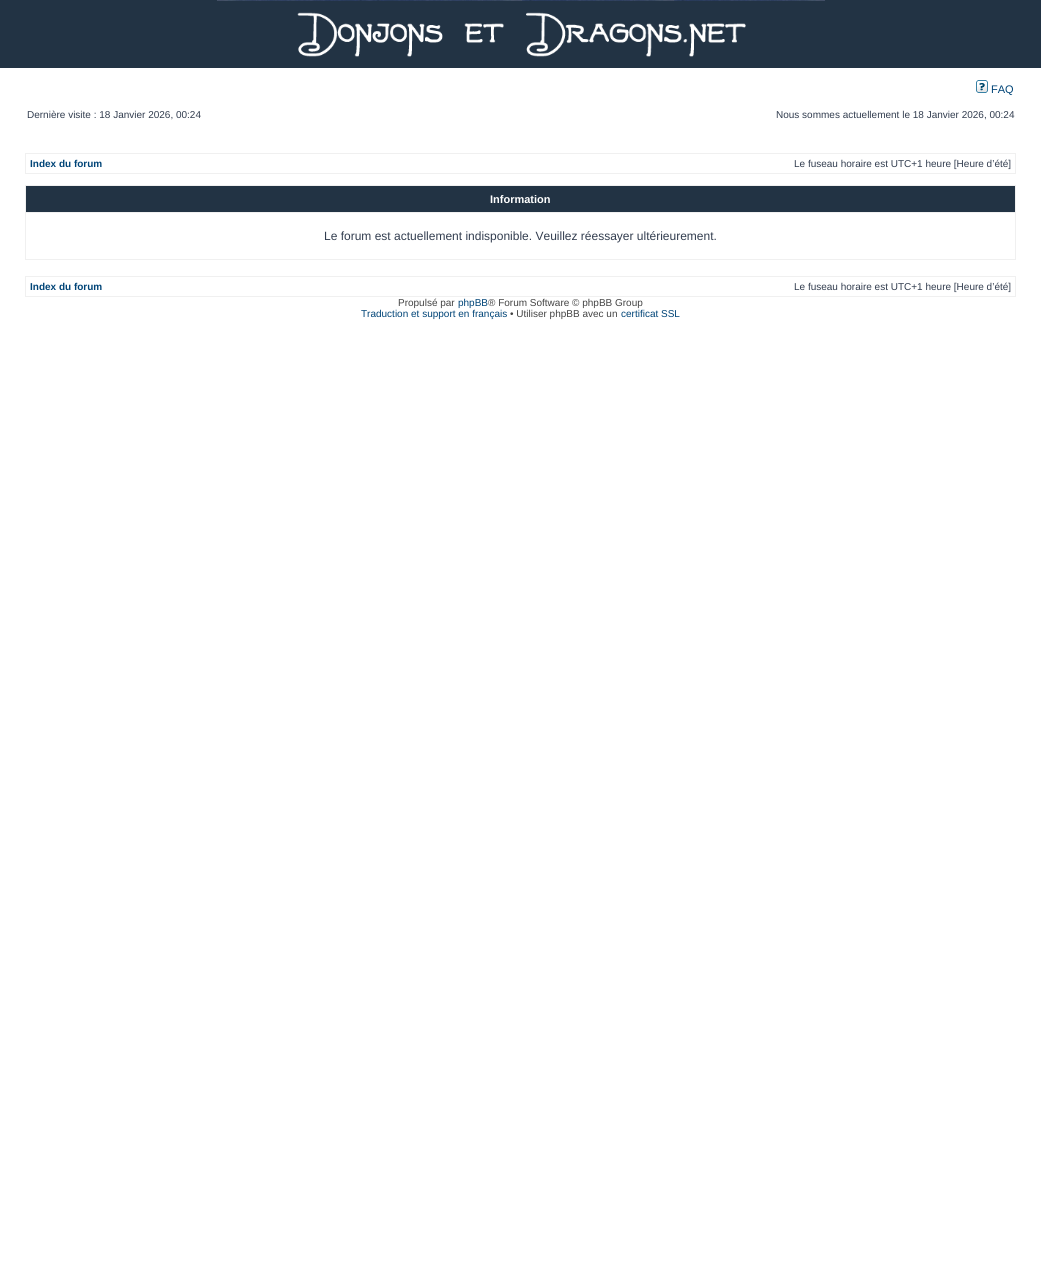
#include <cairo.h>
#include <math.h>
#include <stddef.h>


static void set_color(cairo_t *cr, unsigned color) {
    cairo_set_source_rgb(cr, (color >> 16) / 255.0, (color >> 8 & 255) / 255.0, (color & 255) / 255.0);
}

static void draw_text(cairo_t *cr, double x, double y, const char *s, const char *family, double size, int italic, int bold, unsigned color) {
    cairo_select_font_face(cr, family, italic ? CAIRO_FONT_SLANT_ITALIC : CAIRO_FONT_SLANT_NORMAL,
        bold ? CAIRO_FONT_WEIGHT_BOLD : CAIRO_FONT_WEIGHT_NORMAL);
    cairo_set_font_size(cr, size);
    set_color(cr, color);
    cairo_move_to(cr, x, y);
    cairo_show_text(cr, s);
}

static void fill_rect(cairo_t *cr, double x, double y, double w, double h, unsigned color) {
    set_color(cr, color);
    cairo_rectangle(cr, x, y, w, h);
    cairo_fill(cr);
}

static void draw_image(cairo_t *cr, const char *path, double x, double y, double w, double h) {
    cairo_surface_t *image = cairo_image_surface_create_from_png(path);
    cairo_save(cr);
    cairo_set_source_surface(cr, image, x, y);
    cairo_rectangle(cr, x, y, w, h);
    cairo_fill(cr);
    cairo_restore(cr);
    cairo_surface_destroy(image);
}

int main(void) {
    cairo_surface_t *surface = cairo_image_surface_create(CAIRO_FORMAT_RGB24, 1041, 1263);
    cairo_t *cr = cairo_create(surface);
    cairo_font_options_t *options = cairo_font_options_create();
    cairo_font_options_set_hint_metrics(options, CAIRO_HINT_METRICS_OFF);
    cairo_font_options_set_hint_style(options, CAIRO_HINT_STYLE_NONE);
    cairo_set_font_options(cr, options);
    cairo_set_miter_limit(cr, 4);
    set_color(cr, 0xFFFFFF);
    cairo_paint(cr);
    fill_rect(cr, 0, 0, 1041, 68, 0x223344);
    draw_image(cr, "assets/img1.png", 217, 0, 608, 57);
    draw_image(cr, "assets/img2.png", 976, 80, 12, 13);
    draw_text(cr, 991, 93, "FAQ", "Liberation Sans", 11, 0, 0, 0x004477);
    draw_text(cr, 27, 118, "Dernière visite : 18 Janvier 2026, 00:24", "Liberation Sans", 10, 0, 0, 0x323D4F);
    draw_text(cr, 776, 118, "Nous sommes actuellement le 18 Janvier 2026, 00:24", "Liberation Sans", 10, 0, 0, 0x323D4F);
    fill_rect(cr, 25, 153, 991, 21, 0xF0F0F0);
    fill_rect(cr, 26, 154, 989, 19, 0xFFFFFF);
    draw_text(cr, 30, 167, "Index du forum", "Liberation Sans", 10, 0, 1, 0x004477);
    draw_text(cr, 794, 167, "Le fuseau horaire est UTC+1 heure [Heure d’été]", "Liberation Sans", 10, 0, 0, 0x323D4F);
    fill_rect(cr, 25, 185, 991, 75, 0xF0F0F0);
    fill_rect(cr, 26, 186, 989, 26, 0x223344);
    draw_text(cr, 490, 203, "Information", "Liberation Sans", 11, 0, 1, 0xFFFFFF);
    fill_rect(cr, 26, 213, 989, 46, 0xFFFFFF);
    draw_text(cr, 324, 240, "Le forum est actuellement indisponible. Veuillez réessayer ultérieurement.", "Liberation Sans", 12, 0, 0, 0x323D4F);
    fill_rect(cr, 25, 276, 991, 21, 0xF0F0F0);
    fill_rect(cr, 26, 277, 989, 19, 0xFFFFFF);
    draw_text(cr, 30, 290, "Index du forum", "Liberation Sans", 10, 0, 1, 0x004477);
    draw_text(cr, 794, 290, "Le fuseau horaire est UTC+1 heure [Heure d’été]", "Liberation Sans", 10, 0, 0, 0x323D4F);
    draw_text(cr, 398, 306, "Propulsé par", "Liberation Sans", 10, 0, 0, 0x444444);
    draw_text(cr, 458, 306, "phpBB", "Liberation Sans", 10, 0, 0, 0x004477);
    draw_text(cr, 488, 306, "® Forum Software © phpBB Group", "Liberation Sans", 10, 0, 0, 0x444444);
    draw_text(cr, 361, 317, "Traduction et support en français", "Liberation Sans", 10, 0, 0, 0x004477);
    draw_text(cr, 510, 317, "• Utiliser phpBB avec un", "Liberation Sans", 10, 0, 0, 0x444444);
    draw_text(cr, 621, 317, "certificat SSL", "Liberation Sans", 10, 0, 0, 0x004477);
    cairo_surface_write_to_png(surface, "output.png");
    cairo_font_options_destroy(options);
    cairo_destroy(cr);
    cairo_surface_destroy(surface);
    return 0;
}
